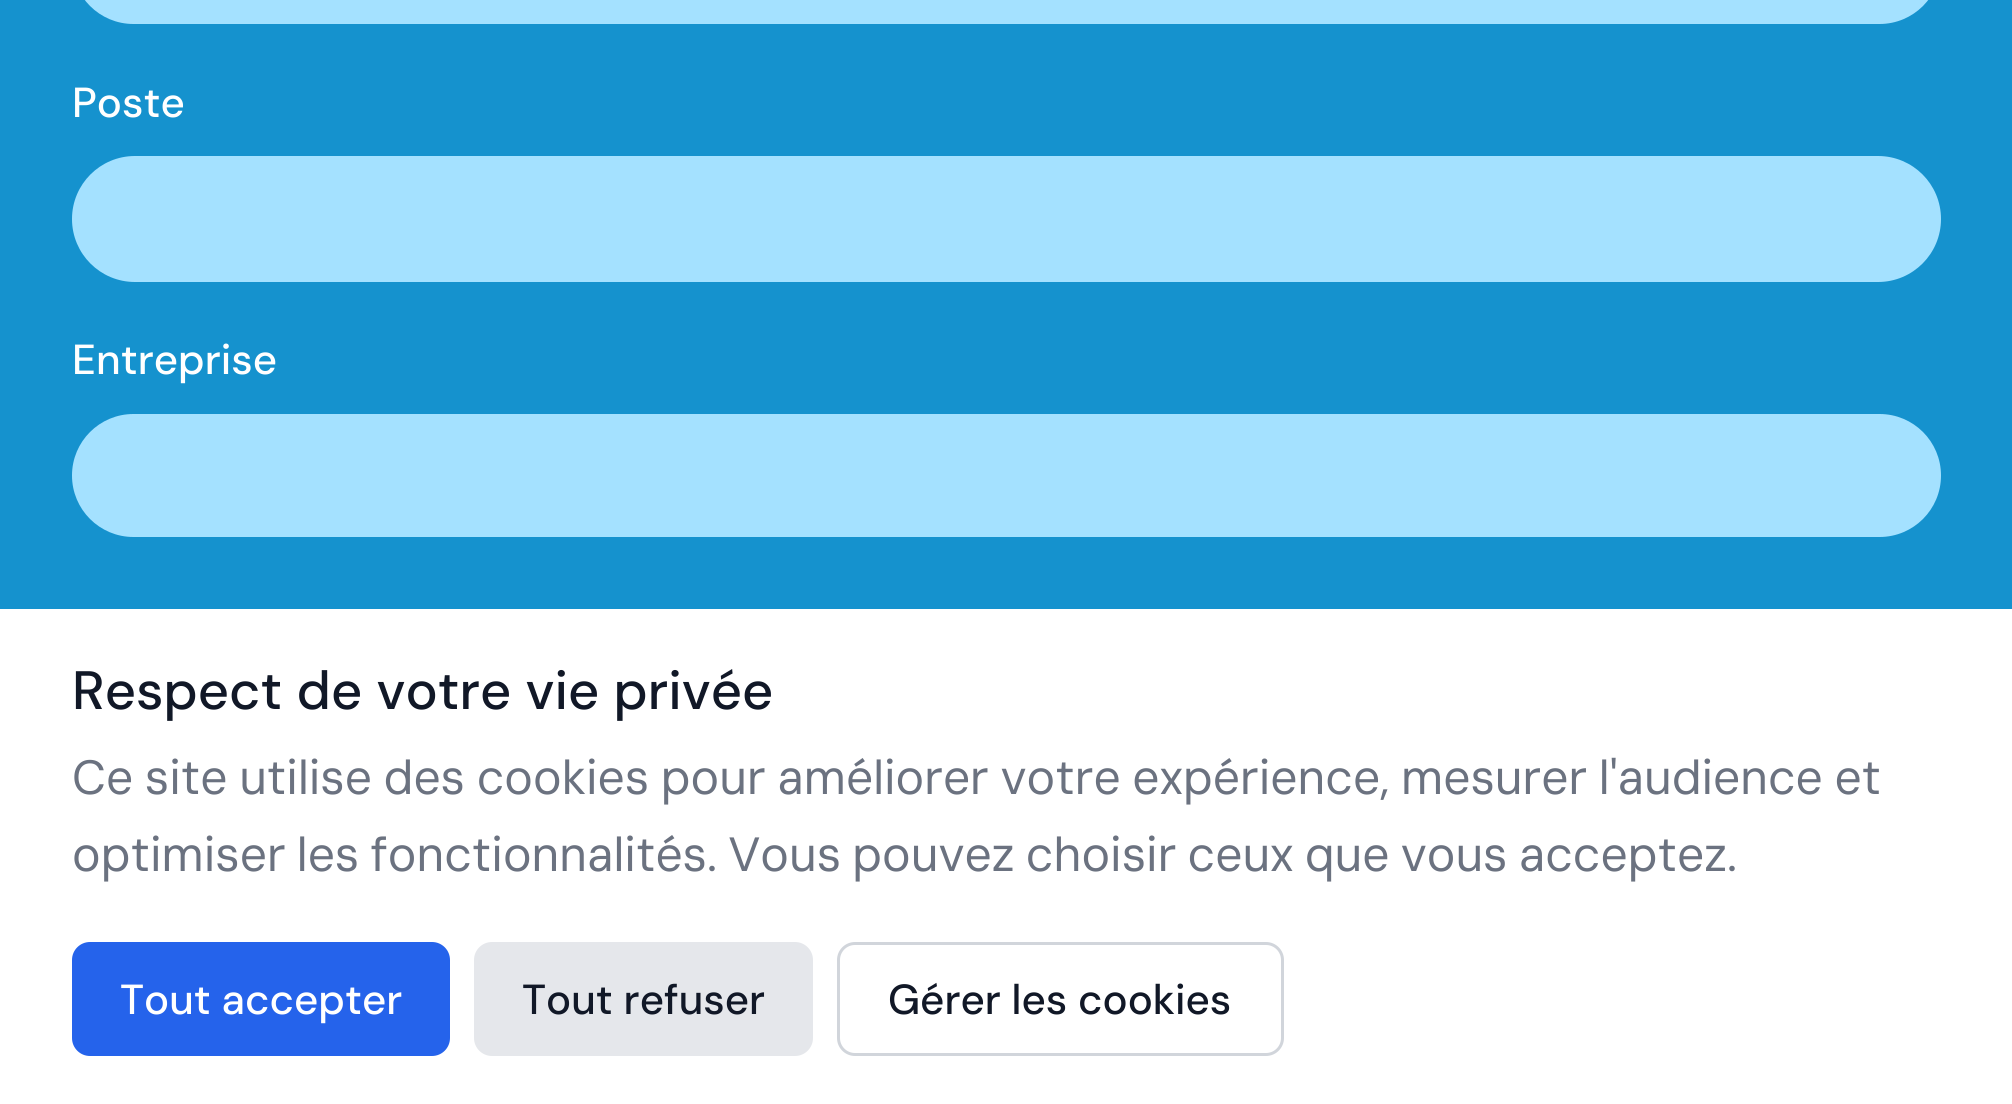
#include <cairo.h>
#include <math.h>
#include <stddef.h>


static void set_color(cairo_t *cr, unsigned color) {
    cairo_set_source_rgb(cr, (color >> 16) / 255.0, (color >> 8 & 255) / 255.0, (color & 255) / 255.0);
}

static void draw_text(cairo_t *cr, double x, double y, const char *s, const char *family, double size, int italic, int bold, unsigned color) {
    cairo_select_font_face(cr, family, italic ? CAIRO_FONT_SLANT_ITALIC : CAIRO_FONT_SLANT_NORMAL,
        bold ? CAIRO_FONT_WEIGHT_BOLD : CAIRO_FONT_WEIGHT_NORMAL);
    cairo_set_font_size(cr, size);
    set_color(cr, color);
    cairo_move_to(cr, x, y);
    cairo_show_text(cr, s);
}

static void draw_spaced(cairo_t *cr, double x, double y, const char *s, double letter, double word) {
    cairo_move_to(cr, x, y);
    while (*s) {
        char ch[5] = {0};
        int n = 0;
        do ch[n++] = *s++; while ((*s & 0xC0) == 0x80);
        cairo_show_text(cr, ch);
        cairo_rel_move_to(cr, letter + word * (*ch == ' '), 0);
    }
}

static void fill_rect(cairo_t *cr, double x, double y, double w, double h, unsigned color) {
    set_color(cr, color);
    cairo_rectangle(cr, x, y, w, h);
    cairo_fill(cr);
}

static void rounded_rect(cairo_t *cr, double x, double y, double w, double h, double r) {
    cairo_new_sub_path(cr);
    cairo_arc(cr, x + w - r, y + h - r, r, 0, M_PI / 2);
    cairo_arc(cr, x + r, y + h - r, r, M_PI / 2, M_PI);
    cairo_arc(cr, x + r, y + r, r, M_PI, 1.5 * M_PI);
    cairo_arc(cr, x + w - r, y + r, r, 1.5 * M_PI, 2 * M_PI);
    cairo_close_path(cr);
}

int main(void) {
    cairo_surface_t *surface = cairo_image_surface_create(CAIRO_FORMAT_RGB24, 2012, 1104);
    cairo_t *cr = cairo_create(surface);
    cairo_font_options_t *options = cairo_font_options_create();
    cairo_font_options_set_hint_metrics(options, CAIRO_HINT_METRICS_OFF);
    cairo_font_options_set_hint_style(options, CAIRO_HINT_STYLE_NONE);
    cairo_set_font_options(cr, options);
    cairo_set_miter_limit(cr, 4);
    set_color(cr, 0x1592CE);
    cairo_paint(cr);
    set_color(cr, 0xA4E1FF);
    rounded_rect(cr, 72, -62, 1869, 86, 61.5);
    cairo_fill(cr);
    draw_text(cr, 72, 117, "Poste", "DM Sans Medium", 42, 0, 0, 0xFFFFFF);
    set_color(cr, 0xA4E1FF);
    rounded_rect(cr, 72, 156, 1869, 126, 63);
    cairo_fill(cr);
    draw_text(cr, 72, 374, "Entreprise", "DM Sans Medium", 42, 0, 0, 0xFFFFFF);
    set_color(cr, 0xA4E1FF);
    rounded_rect(cr, 72, 414, 1869, 123, 61.5);
    cairo_fill(cr);
    fill_rect(cr, 0, 609, 2012, 495, 0xFFFFFF);
    cairo_select_font_face(cr, "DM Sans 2 Medium", CAIRO_FONT_SLANT_NORMAL, CAIRO_FONT_WEIGHT_NORMAL);
    cairo_set_font_size(cr, 54);
    set_color(cr, 0x111827);
    draw_spaced(cr, 72, 709, "Respect de votre vie privée", 0, 0.5);
    cairo_select_font_face(cr, "DM Sans", CAIRO_FONT_SLANT_NORMAL, CAIRO_FONT_WEIGHT_NORMAL);
    cairo_set_font_size(cr, 48);
    set_color(cr, 0x6B7280);
    draw_spaced(cr, 72, 794, "Ce site utilise des cookies pour améliorer votre expérience, mesurer l'audience et", 0, -1.25);
    draw_spaced(cr, 72, 871, "optimiser les fonctionnalités. Vous pouvez choisir ceux que vous acceptez.", 0, -1.75);
    set_color(cr, 0x2563EB);
    rounded_rect(cr, 72, 942, 378, 114, 18);
    cairo_fill(cr);
    draw_text(cr, 120, 1014, "Tout accepter", "DM Sans Medium", 42, 0, 0, 0xFFFFFF);
    set_color(cr, 0xE5E7EB);
    rounded_rect(cr, 474, 942, 339, 114, 18);
    cairo_fill(cr);
    draw_text(cr, 522, 1014, "Tout refuser", "DM Sans Medium", 42, 0, 0, 0x111827);
    rounded_rect(cr, 838.5, 943.5, 444, 111, 16.5);
    set_color(cr, 0xD1D5DB);
    cairo_set_line_width(cr, 3);
    cairo_stroke(cr);
    draw_text(cr, 888, 1014, "Gérer les cookies", "DM Sans Medium", 42, 0, 0, 0x111827);
    cairo_surface_write_to_png(surface, "output.png");
    cairo_font_options_destroy(options);
    cairo_destroy(cr);
    cairo_surface_destroy(surface);
    return 0;
}
